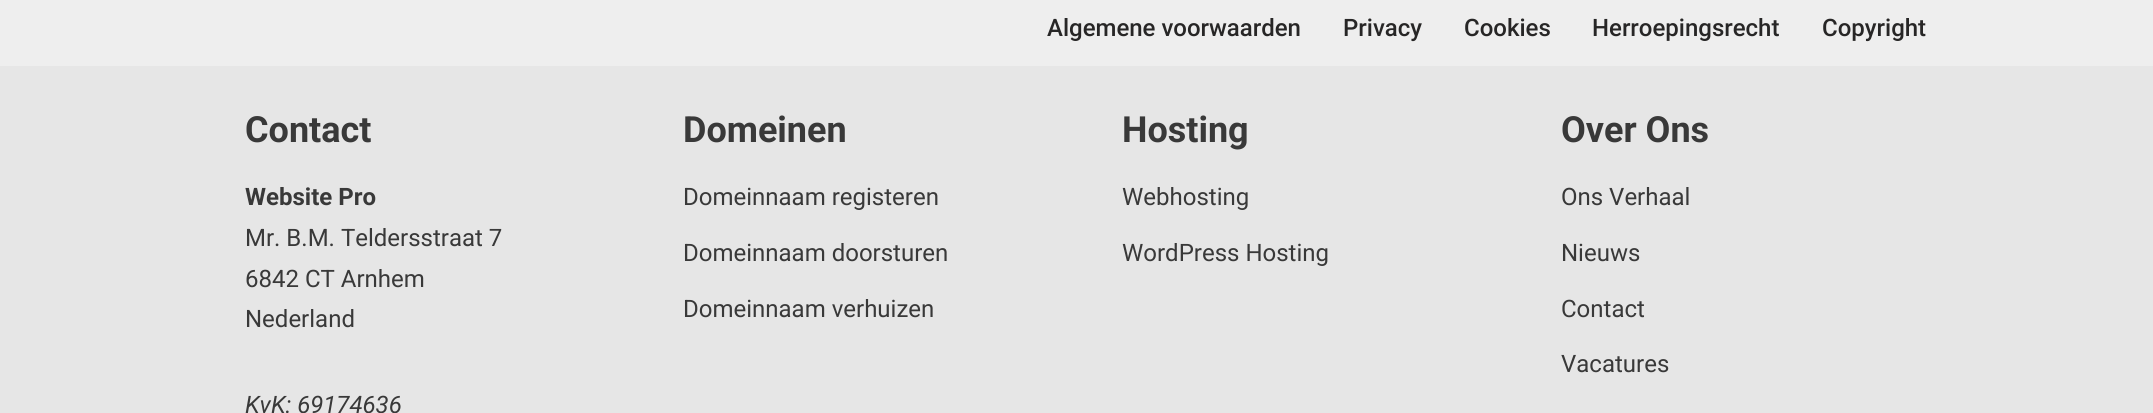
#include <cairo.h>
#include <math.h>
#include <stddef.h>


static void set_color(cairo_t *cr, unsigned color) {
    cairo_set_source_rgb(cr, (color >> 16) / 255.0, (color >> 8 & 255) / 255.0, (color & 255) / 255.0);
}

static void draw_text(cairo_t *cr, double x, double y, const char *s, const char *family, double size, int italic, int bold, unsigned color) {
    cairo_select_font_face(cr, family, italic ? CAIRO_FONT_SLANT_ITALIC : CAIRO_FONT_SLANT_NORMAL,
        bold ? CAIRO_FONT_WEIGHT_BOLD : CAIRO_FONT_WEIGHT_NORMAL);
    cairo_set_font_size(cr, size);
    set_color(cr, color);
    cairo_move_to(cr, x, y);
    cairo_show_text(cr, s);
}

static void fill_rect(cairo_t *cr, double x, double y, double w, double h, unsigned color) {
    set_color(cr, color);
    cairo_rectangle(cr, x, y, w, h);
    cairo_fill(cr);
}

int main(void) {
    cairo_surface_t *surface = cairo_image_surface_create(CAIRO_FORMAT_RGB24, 2153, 413);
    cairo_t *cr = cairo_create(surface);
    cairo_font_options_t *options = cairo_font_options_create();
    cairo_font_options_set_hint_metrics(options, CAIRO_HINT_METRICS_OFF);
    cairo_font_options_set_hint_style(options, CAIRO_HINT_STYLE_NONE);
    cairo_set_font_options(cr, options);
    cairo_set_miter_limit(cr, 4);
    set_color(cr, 0xEEEEEE);
    cairo_paint(cr);
    draw_text(cr, 1047, 36, "Algemene voorwaarden", "Roboto Medium", 24, 0, 0, 0x272626);
    draw_text(cr, 1343, 36, "Privacy", "Roboto Medium", 24, 0, 0, 0x272626);
    draw_text(cr, 1464, 36, "Cookies", "Roboto Medium", 24, 0, 0, 0x272626);
    draw_text(cr, 1592, 36, "Herroepingsrecht", "Roboto Medium", 24, 0, 0, 0x272626);
    draw_text(cr, 1822, 36, "Copyright", "Roboto Medium", 24, 0, 0, 0x272626);
    fill_rect(cr, 0, 66, 2153, 347, 0xE6E6E6);
    draw_text(cr, 245, 142, "Contact", "Roboto", 36, 0, 1, 0x393939);
    draw_text(cr, 245, 205, "Website Pro", "Roboto", 24, 0, 1, 0x393939);
    draw_text(cr, 245, 246, "Mr. B.M. Teldersstraat 7", "Roboto", 24, 0, 0, 0x393939);
    draw_text(cr, 245, 287, "6842 CT Arnhem", "Roboto", 24, 0, 0, 0x393939);
    draw_text(cr, 245, 327, "Nederland", "Roboto", 24, 0, 0, 0x393939);
    draw_text(cr, 245, 413, "KvK: 69174636", "Roboto", 24, 1, 0, 0x393939);
    draw_text(cr, 683, 142, "Domeinen", "Roboto", 36, 0, 1, 0x393939);
    draw_text(cr, 683, 205, "Domeinnaam registeren", "Roboto", 24, 0, 0, 0x393939);
    draw_text(cr, 683, 261, "Domeinnaam doorsturen", "Roboto", 24, 0, 0, 0x393939);
    draw_text(cr, 683, 317, "Domeinnaam verhuizen", "Roboto", 24, 0, 0, 0x393939);
    draw_text(cr, 1122, 142, "Hosting", "Roboto", 36, 0, 1, 0x393939);
    draw_text(cr, 1122, 205, "Webhosting", "Roboto", 24, 0, 0, 0x393939);
    draw_text(cr, 1122, 261, "WordPress Hosting", "Roboto", 24, 0, 0, 0x393939);
    draw_text(cr, 1561, 142, "Over Ons", "Roboto", 36, 0, 1, 0x393939);
    draw_text(cr, 1561, 205, "Ons Verhaal", "Roboto", 24, 0, 0, 0x393939);
    draw_text(cr, 1561, 261, "Nieuws", "Roboto", 24, 0, 0, 0x393939);
    draw_text(cr, 1561, 317, "Contact", "Roboto", 24, 0, 0, 0x393939);
    draw_text(cr, 1561, 372, "Vacatures", "Roboto", 24, 0, 0, 0x393939);
    cairo_surface_write_to_png(surface, "output.png");
    cairo_font_options_destroy(options);
    cairo_destroy(cr);
    cairo_surface_destroy(surface);
    return 0;
}
